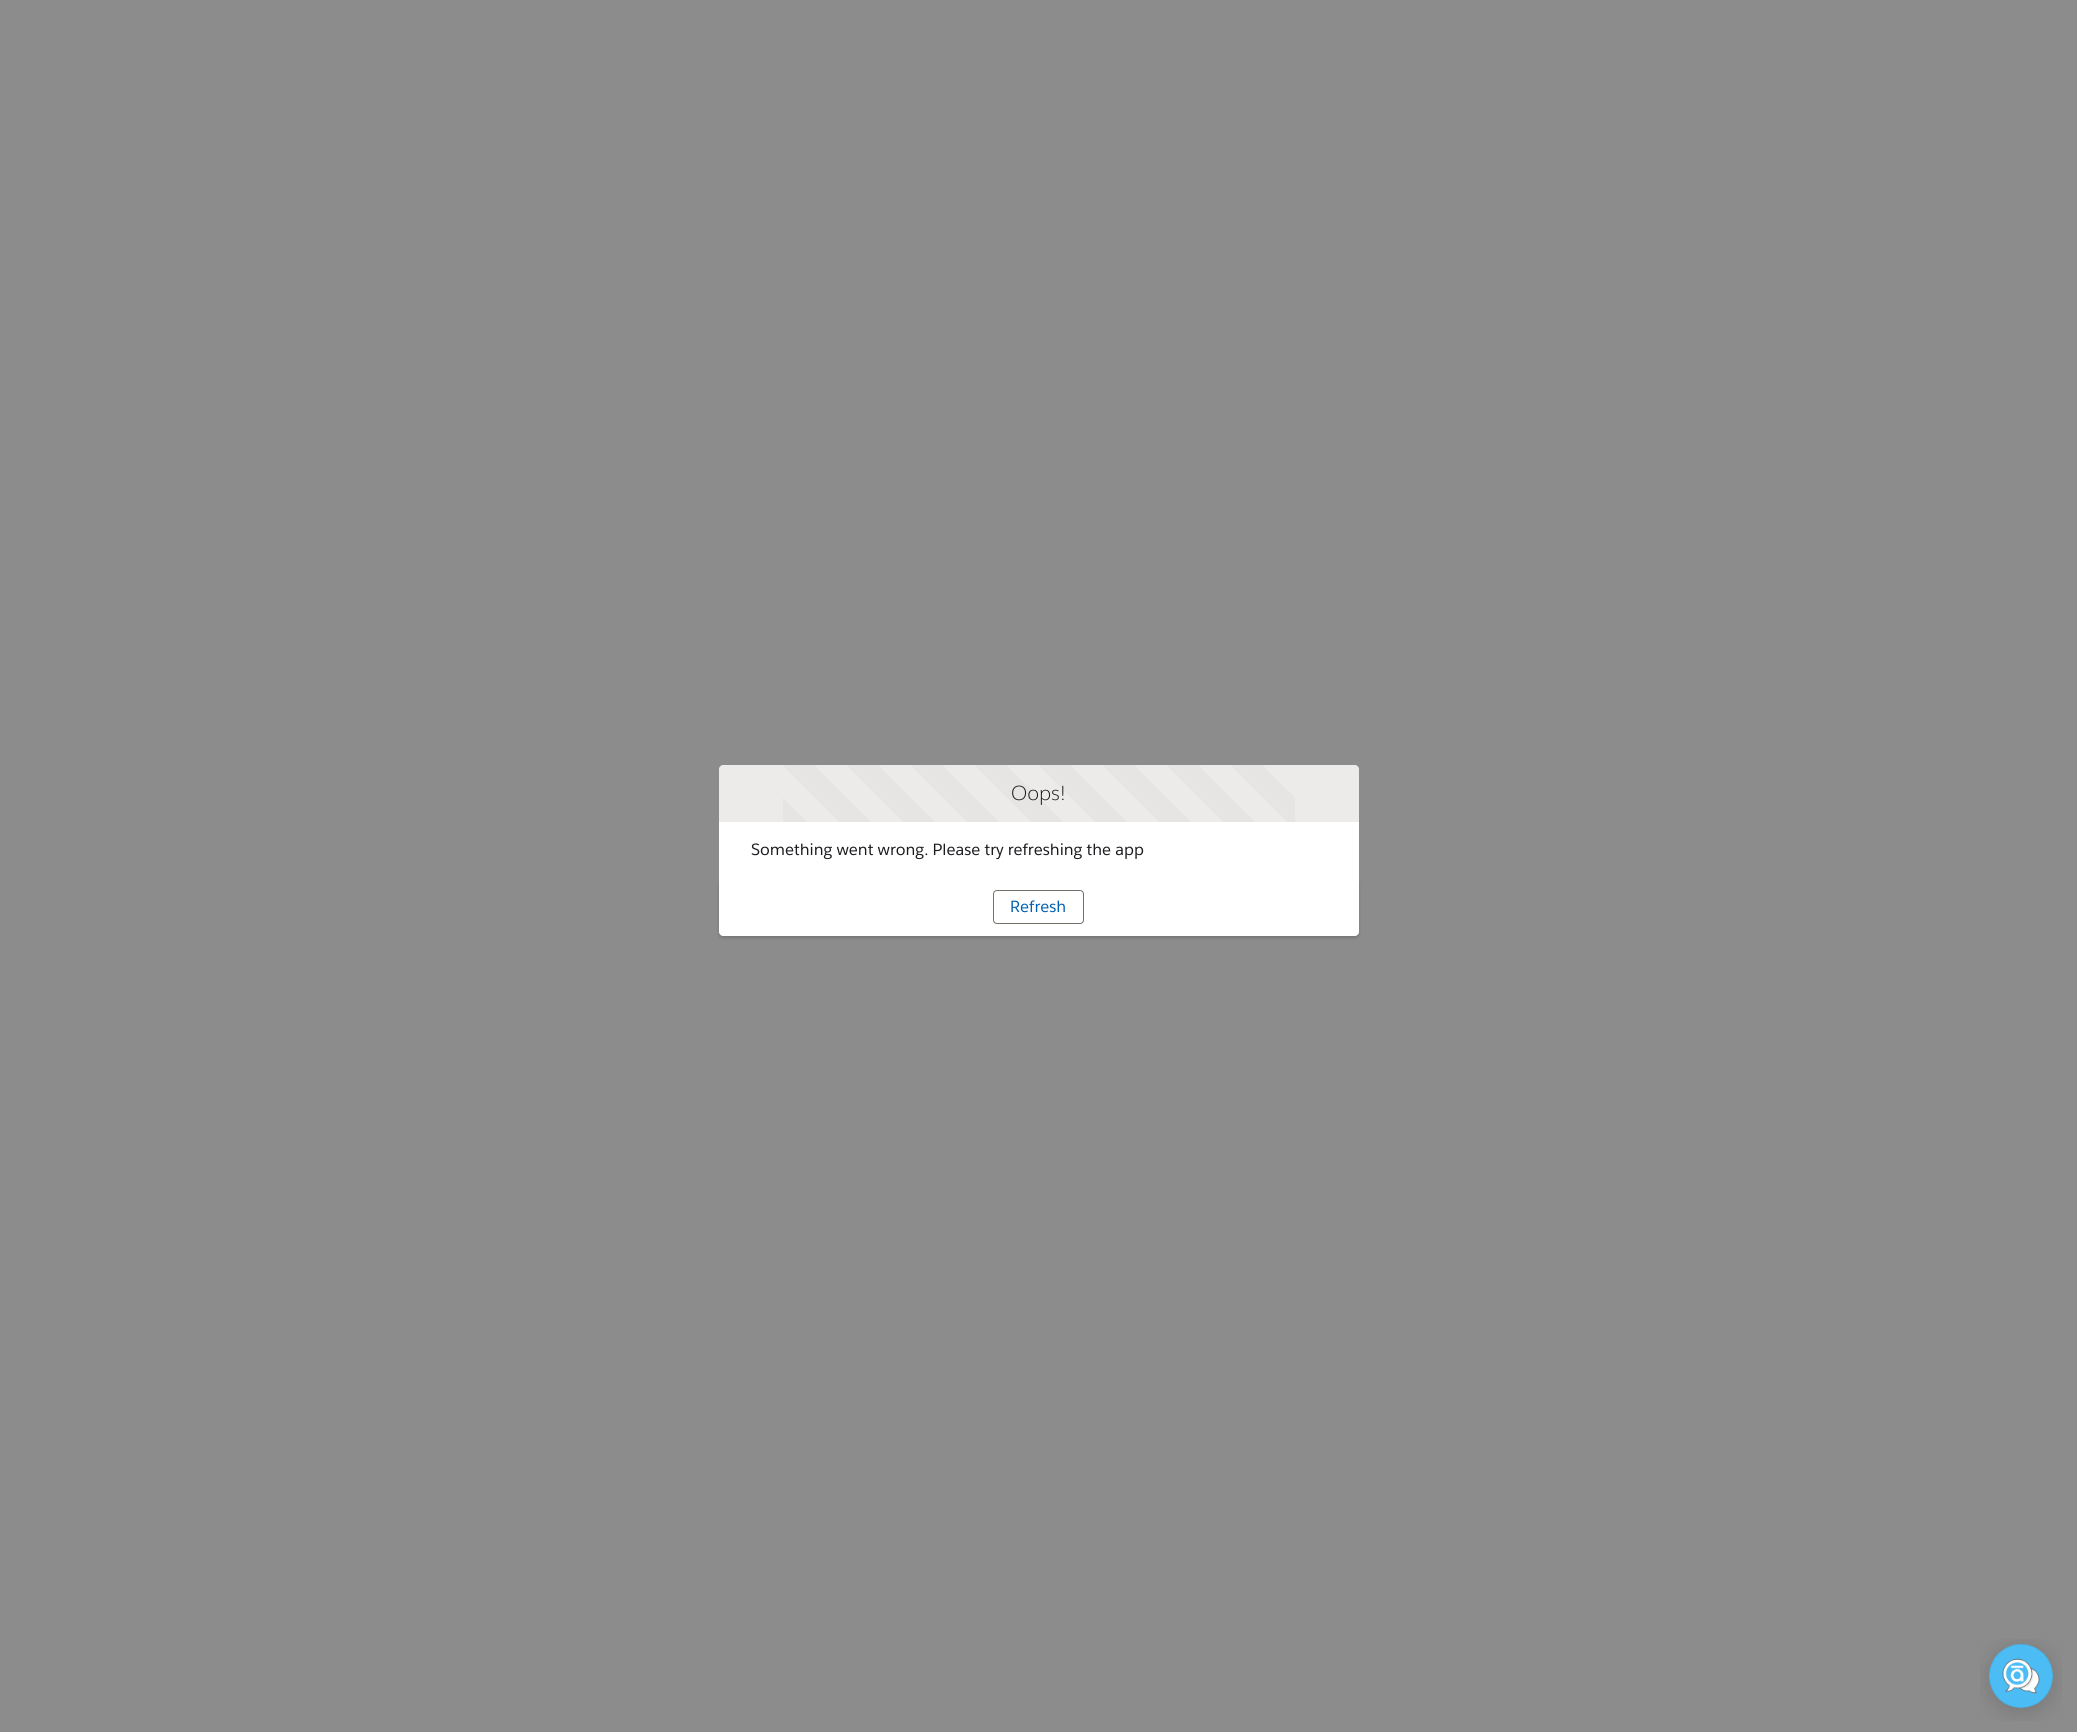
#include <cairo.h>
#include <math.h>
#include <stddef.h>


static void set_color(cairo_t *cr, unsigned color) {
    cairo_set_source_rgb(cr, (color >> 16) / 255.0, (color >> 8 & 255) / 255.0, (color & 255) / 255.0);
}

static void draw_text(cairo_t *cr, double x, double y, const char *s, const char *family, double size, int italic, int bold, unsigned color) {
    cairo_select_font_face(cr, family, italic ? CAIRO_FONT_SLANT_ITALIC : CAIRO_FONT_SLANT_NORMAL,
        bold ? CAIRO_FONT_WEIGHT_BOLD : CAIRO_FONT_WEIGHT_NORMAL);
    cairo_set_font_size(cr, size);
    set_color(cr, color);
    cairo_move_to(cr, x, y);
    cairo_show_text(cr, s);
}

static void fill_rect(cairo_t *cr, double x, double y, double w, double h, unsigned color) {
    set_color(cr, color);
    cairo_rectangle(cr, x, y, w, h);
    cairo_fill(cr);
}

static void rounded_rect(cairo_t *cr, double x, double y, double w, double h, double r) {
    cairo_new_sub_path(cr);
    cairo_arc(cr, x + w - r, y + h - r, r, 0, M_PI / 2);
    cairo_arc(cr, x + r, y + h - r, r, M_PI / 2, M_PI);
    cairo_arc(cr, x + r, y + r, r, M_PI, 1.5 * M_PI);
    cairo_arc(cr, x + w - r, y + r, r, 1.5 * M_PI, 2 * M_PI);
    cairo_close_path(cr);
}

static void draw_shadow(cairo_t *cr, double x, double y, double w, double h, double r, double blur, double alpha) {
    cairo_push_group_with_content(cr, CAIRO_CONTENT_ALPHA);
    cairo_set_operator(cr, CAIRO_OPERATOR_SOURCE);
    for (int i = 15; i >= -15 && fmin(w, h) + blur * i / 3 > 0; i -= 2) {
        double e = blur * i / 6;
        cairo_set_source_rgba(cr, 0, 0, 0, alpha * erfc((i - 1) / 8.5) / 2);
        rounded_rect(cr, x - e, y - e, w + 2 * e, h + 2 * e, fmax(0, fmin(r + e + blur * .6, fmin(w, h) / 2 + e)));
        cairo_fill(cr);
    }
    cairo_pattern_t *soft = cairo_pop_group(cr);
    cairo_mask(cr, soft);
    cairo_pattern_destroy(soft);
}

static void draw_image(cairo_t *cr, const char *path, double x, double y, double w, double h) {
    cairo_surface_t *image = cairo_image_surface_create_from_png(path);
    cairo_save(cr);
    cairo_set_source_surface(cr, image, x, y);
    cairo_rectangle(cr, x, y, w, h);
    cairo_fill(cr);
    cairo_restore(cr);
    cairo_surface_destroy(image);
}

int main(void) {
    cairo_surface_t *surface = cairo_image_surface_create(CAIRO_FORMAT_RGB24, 2077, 1732);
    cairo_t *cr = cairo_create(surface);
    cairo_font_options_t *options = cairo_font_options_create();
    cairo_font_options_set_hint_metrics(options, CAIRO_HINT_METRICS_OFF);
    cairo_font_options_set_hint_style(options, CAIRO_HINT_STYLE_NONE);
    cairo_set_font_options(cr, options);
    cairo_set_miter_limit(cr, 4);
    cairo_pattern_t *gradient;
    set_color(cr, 0x8C8C8C);
    cairo_paint(cr);
    set_color(cr, 0xECEBEA);
    cairo_new_path(cr);
    cairo_move_to(cr, 723, 765);
    cairo_line_to(cr, 1355, 765);
    cairo_curve_to(cr, 1357, 765, 1359, 767, 1359, 769);
    cairo_line_to(cr, 1359, 822);
    cairo_line_to(cr, 719, 822);
    cairo_line_to(cr, 719, 769);
    cairo_curve_to(cr, 719, 767, 721, 765, 723, 765);
    cairo_close_path(cr);
    cairo_fill(cr);
    gradient = cairo_pattern_create_linear(783, 829, 847, 765);
    cairo_pattern_add_color_stop_rgba(gradient, 0.25, 0.902, 0.898, 0.894, 1);
    cairo_pattern_add_color_stop_rgba(gradient, 0.25, 0.925, 0.922, 0.918, 1);
    cairo_pattern_add_color_stop_rgba(gradient, 0.5, 0.925, 0.922, 0.918, 1);
    cairo_pattern_add_color_stop_rgba(gradient, 0.5, 0.902, 0.898, 0.894, 1);
    cairo_pattern_add_color_stop_rgba(gradient, 0.75, 0.902, 0.898, 0.894, 1);
    cairo_pattern_add_color_stop_rgba(gradient, 0.75, 0.925, 0.922, 0.918, 1);
    cairo_pattern_add_color_stop_rgba(gradient, 1, 0.925, 0.922, 0.918, 1);
    cairo_set_source(cr, gradient);
    cairo_pattern_destroy(gradient);
    cairo_rectangle(cr, 783, 765, 64, 57);
    cairo_fill(cr);
    gradient = cairo_pattern_create_linear(847, 829, 911, 765);
    cairo_pattern_add_color_stop_rgba(gradient, 0.25, 0.902, 0.898, 0.894, 1);
    cairo_pattern_add_color_stop_rgba(gradient, 0.25, 0.925, 0.922, 0.918, 1);
    cairo_pattern_add_color_stop_rgba(gradient, 0.5, 0.925, 0.922, 0.918, 1);
    cairo_pattern_add_color_stop_rgba(gradient, 0.5, 0.902, 0.898, 0.894, 1);
    cairo_pattern_add_color_stop_rgba(gradient, 0.75, 0.902, 0.898, 0.894, 1);
    cairo_pattern_add_color_stop_rgba(gradient, 0.75, 0.925, 0.922, 0.918, 1);
    cairo_pattern_add_color_stop_rgba(gradient, 1, 0.925, 0.922, 0.918, 1);
    cairo_set_source(cr, gradient);
    cairo_pattern_destroy(gradient);
    cairo_rectangle(cr, 847, 765, 64, 57);
    cairo_fill(cr);
    gradient = cairo_pattern_create_linear(911, 829, 975, 765);
    cairo_pattern_add_color_stop_rgba(gradient, 0.25, 0.902, 0.898, 0.894, 1);
    cairo_pattern_add_color_stop_rgba(gradient, 0.25, 0.925, 0.922, 0.918, 1);
    cairo_pattern_add_color_stop_rgba(gradient, 0.5, 0.925, 0.922, 0.918, 1);
    cairo_pattern_add_color_stop_rgba(gradient, 0.5, 0.902, 0.898, 0.894, 1);
    cairo_pattern_add_color_stop_rgba(gradient, 0.75, 0.902, 0.898, 0.894, 1);
    cairo_pattern_add_color_stop_rgba(gradient, 0.75, 0.925, 0.922, 0.918, 1);
    cairo_pattern_add_color_stop_rgba(gradient, 1, 0.925, 0.922, 0.918, 1);
    cairo_set_source(cr, gradient);
    cairo_pattern_destroy(gradient);
    cairo_rectangle(cr, 911, 765, 64, 57);
    cairo_fill(cr);
    gradient = cairo_pattern_create_linear(975, 829, 1039, 765);
    cairo_pattern_add_color_stop_rgba(gradient, 0.25, 0.902, 0.898, 0.894, 1);
    cairo_pattern_add_color_stop_rgba(gradient, 0.25, 0.925, 0.922, 0.918, 1);
    cairo_pattern_add_color_stop_rgba(gradient, 0.5, 0.925, 0.922, 0.918, 1);
    cairo_pattern_add_color_stop_rgba(gradient, 0.5, 0.902, 0.898, 0.894, 1);
    cairo_pattern_add_color_stop_rgba(gradient, 0.75, 0.902, 0.898, 0.894, 1);
    cairo_pattern_add_color_stop_rgba(gradient, 0.75, 0.925, 0.922, 0.918, 1);
    cairo_pattern_add_color_stop_rgba(gradient, 1, 0.925, 0.922, 0.918, 1);
    cairo_set_source(cr, gradient);
    cairo_pattern_destroy(gradient);
    cairo_rectangle(cr, 975, 765, 64, 57);
    cairo_fill(cr);
    gradient = cairo_pattern_create_linear(1039, 829, 1103, 765);
    cairo_pattern_add_color_stop_rgba(gradient, 0.25, 0.902, 0.898, 0.894, 1);
    cairo_pattern_add_color_stop_rgba(gradient, 0.25, 0.925, 0.922, 0.918, 1);
    cairo_pattern_add_color_stop_rgba(gradient, 0.5, 0.925, 0.922, 0.918, 1);
    cairo_pattern_add_color_stop_rgba(gradient, 0.5, 0.902, 0.898, 0.894, 1);
    cairo_pattern_add_color_stop_rgba(gradient, 0.75, 0.902, 0.898, 0.894, 1);
    cairo_pattern_add_color_stop_rgba(gradient, 0.75, 0.925, 0.922, 0.918, 1);
    cairo_pattern_add_color_stop_rgba(gradient, 1, 0.925, 0.922, 0.918, 1);
    cairo_set_source(cr, gradient);
    cairo_pattern_destroy(gradient);
    cairo_rectangle(cr, 1039, 765, 64, 57);
    cairo_fill(cr);
    gradient = cairo_pattern_create_linear(1103, 829, 1167, 765);
    cairo_pattern_add_color_stop_rgba(gradient, 0.25, 0.902, 0.898, 0.894, 1);
    cairo_pattern_add_color_stop_rgba(gradient, 0.25, 0.925, 0.922, 0.918, 1);
    cairo_pattern_add_color_stop_rgba(gradient, 0.5, 0.925, 0.922, 0.918, 1);
    cairo_pattern_add_color_stop_rgba(gradient, 0.5, 0.902, 0.898, 0.894, 1);
    cairo_pattern_add_color_stop_rgba(gradient, 0.75, 0.902, 0.898, 0.894, 1);
    cairo_pattern_add_color_stop_rgba(gradient, 0.75, 0.925, 0.922, 0.918, 1);
    cairo_pattern_add_color_stop_rgba(gradient, 1, 0.925, 0.922, 0.918, 1);
    cairo_set_source(cr, gradient);
    cairo_pattern_destroy(gradient);
    cairo_rectangle(cr, 1103, 765, 64, 57);
    cairo_fill(cr);
    gradient = cairo_pattern_create_linear(1167, 829, 1231, 765);
    cairo_pattern_add_color_stop_rgba(gradient, 0.25, 0.902, 0.898, 0.894, 1);
    cairo_pattern_add_color_stop_rgba(gradient, 0.25, 0.925, 0.922, 0.918, 1);
    cairo_pattern_add_color_stop_rgba(gradient, 0.5, 0.925, 0.922, 0.918, 1);
    cairo_pattern_add_color_stop_rgba(gradient, 0.5, 0.902, 0.898, 0.894, 1);
    cairo_pattern_add_color_stop_rgba(gradient, 0.75, 0.902, 0.898, 0.894, 1);
    cairo_pattern_add_color_stop_rgba(gradient, 0.75, 0.925, 0.922, 0.918, 1);
    cairo_pattern_add_color_stop_rgba(gradient, 1, 0.925, 0.922, 0.918, 1);
    cairo_set_source(cr, gradient);
    cairo_pattern_destroy(gradient);
    cairo_rectangle(cr, 1167, 765, 64, 57);
    cairo_fill(cr);
    gradient = cairo_pattern_create_linear(1231, 829, 1295, 765);
    cairo_pattern_add_color_stop_rgba(gradient, 0.25, 0.902, 0.898, 0.894, 1);
    cairo_pattern_add_color_stop_rgba(gradient, 0.25, 0.925, 0.922, 0.918, 1);
    cairo_pattern_add_color_stop_rgba(gradient, 0.5, 0.925, 0.922, 0.918, 1);
    cairo_pattern_add_color_stop_rgba(gradient, 0.5, 0.902, 0.898, 0.894, 1);
    cairo_pattern_add_color_stop_rgba(gradient, 0.75, 0.902, 0.898, 0.894, 1);
    cairo_pattern_add_color_stop_rgba(gradient, 0.75, 0.925, 0.922, 0.918, 1);
    cairo_pattern_add_color_stop_rgba(gradient, 1, 0.925, 0.922, 0.918, 1);
    cairo_set_source(cr, gradient);
    cairo_pattern_destroy(gradient);
    cairo_rectangle(cr, 1231, 765, 64, 57);
    cairo_fill(cr);
    draw_text(cr, 1011, 800, "Oops!", "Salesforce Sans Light", 20, 0, 0, 0x1A1B1E);
    set_color(cr, 0x000000);
    draw_shadow(cr, 719, 880, 640, 58, 4, 1.5, 0.16);
    fill_rect(cr, 719, 822, 640, 56, 0xFFFFFF);
    draw_text(cr, 751, 855, "Something went wrong. Please try refreshing the app", "Salesforce Sans", 16, 0, 0, 0x1A1B1E);
    set_color(cr, 0xFFFFFF);
    cairo_new_path(cr);
    cairo_move_to(cr, 719, 878);
    cairo_line_to(cr, 1359, 878);
    cairo_line_to(cr, 1359, 932);
    cairo_curve_to(cr, 1359, 934, 1357, 936, 1355, 936);
    cairo_line_to(cr, 723, 936);
    cairo_curve_to(cr, 721, 936, 719, 934, 719, 932);
    cairo_close_path(cr);
    cairo_fill(cr);
    rounded_rect(cr, 993.5, 890.5, 90, 33, 3.5);
    set_color(cr, 0x76716B);
    cairo_set_line_width(cr, 1);
    cairo_stroke(cr);
    draw_text(cr, 1010, 912, "Refresh", "Salesforce Sans", 16, 0, 0, 0x005FB2);
    draw_image(cr, "assets/img1.png", 1980, 1639, 82, 82);
    cairo_surface_write_to_png(surface, "output.png");
    cairo_font_options_destroy(options);
    cairo_destroy(cr);
    cairo_surface_destroy(surface);
    return 0;
}
